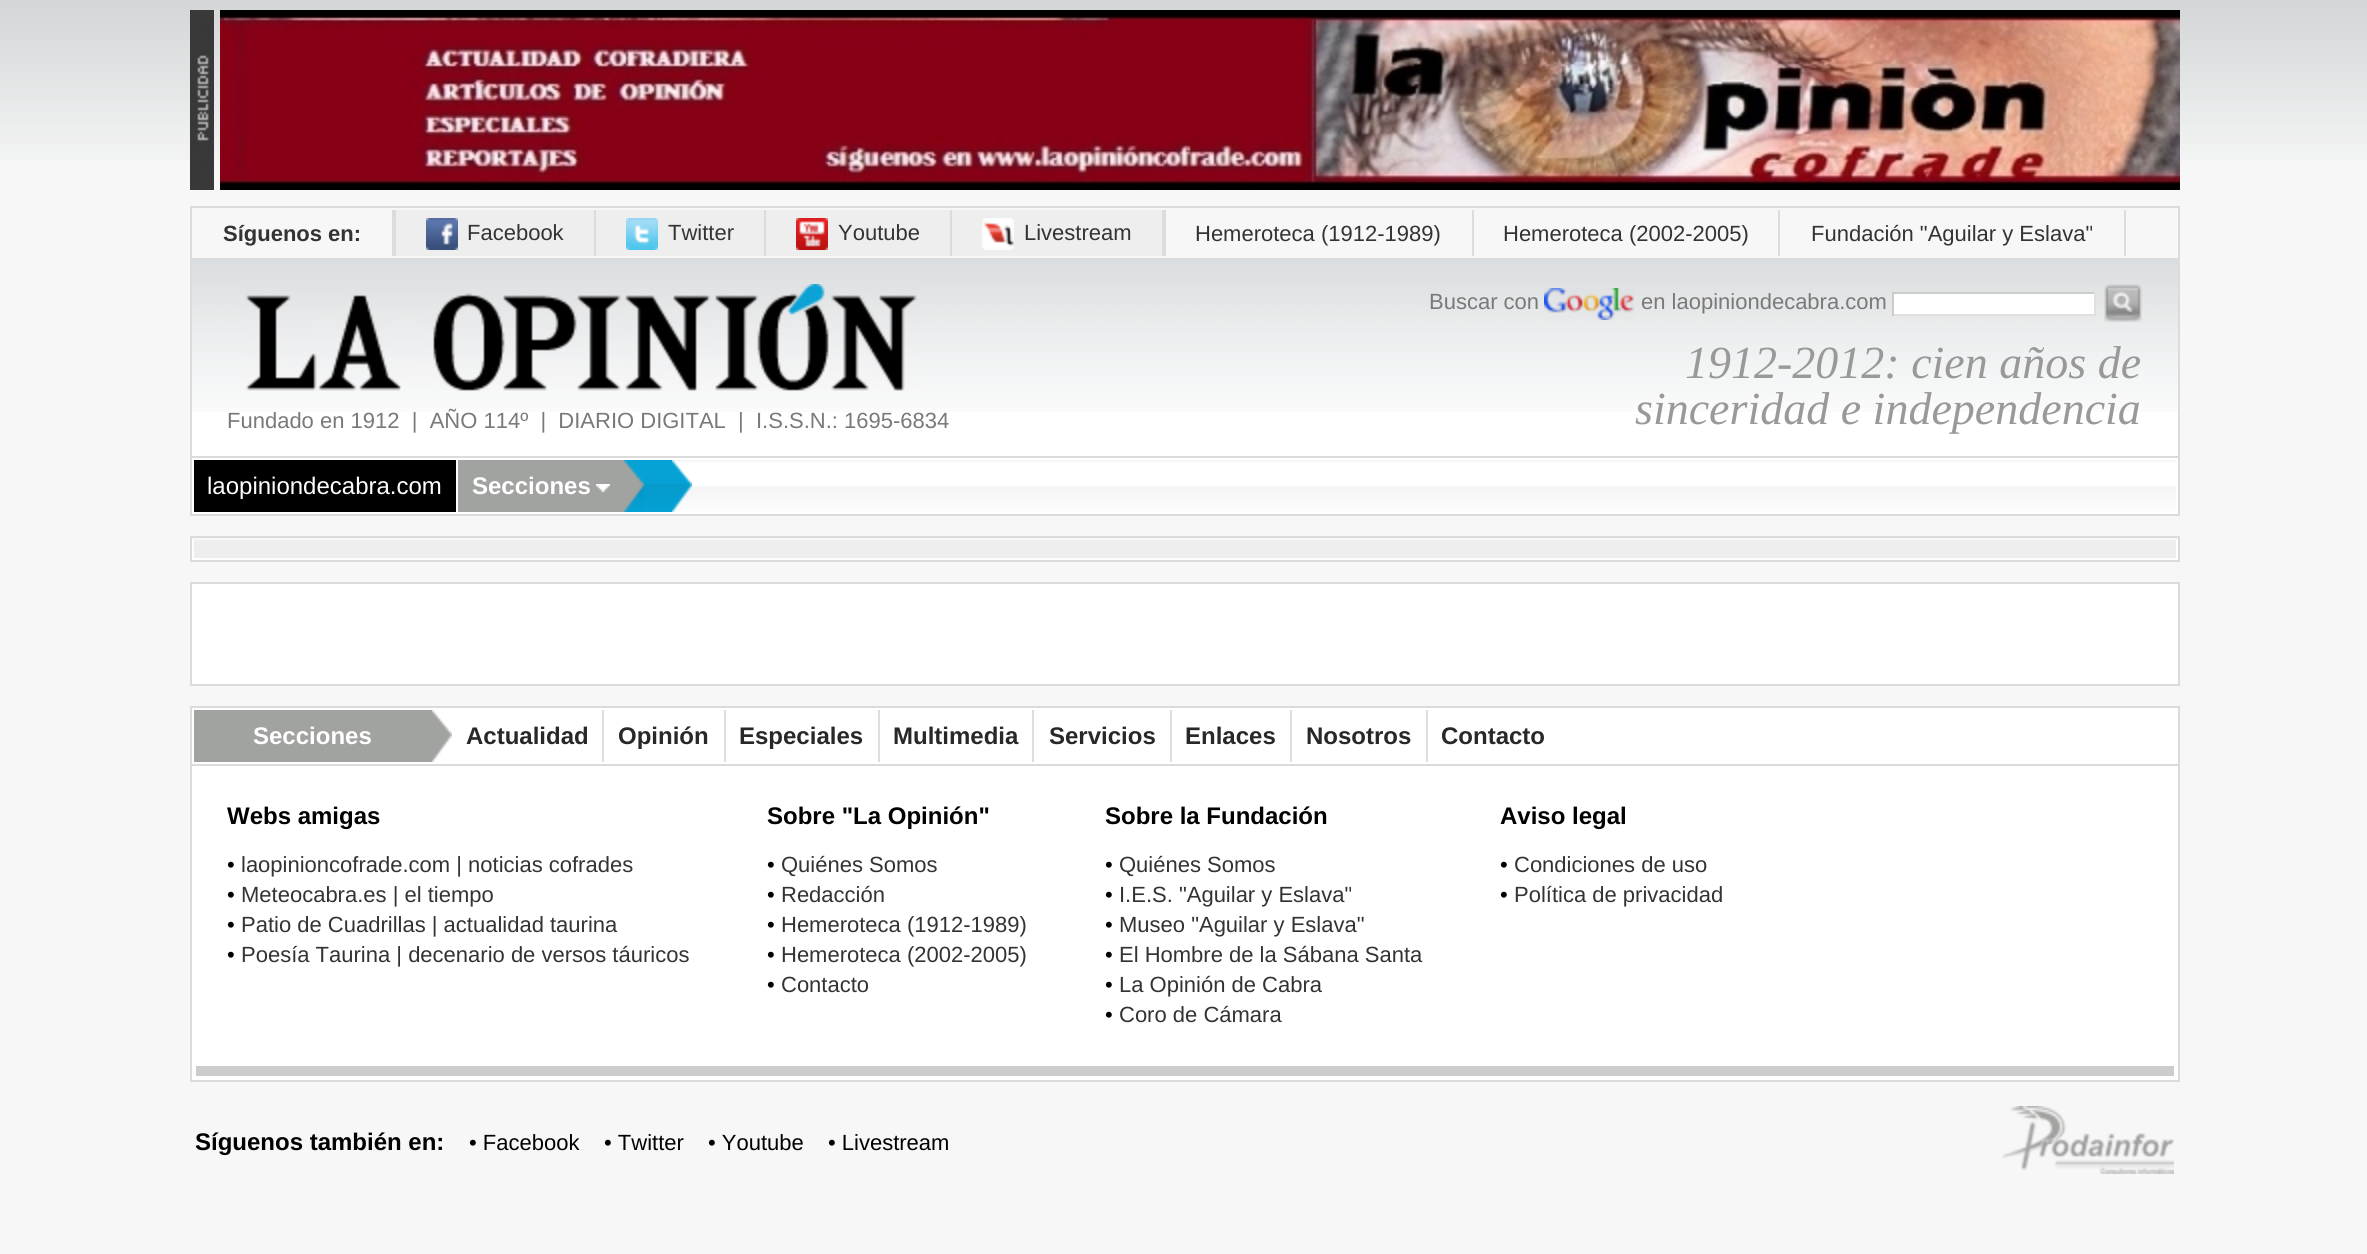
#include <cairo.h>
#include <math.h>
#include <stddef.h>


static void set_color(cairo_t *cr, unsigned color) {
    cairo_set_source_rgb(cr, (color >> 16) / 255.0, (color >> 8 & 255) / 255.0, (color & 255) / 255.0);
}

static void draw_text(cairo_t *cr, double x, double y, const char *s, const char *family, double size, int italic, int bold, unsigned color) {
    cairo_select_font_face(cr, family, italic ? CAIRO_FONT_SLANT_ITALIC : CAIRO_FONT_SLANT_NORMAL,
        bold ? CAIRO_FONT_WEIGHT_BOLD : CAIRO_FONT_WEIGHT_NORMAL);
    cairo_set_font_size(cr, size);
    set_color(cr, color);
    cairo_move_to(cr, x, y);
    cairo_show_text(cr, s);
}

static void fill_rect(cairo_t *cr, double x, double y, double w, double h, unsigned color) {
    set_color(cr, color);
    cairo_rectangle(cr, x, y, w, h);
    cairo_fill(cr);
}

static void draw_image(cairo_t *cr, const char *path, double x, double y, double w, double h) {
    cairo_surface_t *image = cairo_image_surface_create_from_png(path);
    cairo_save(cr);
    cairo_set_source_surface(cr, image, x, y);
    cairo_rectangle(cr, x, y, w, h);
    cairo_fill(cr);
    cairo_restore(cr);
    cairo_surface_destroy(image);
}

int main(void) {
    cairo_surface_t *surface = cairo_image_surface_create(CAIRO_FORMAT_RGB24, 2367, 1254);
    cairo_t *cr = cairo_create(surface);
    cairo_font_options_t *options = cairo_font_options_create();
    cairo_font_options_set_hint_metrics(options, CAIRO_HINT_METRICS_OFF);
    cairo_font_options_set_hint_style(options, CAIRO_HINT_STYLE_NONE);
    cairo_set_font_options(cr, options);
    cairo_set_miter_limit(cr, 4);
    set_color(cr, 0xF7F7F7);
    cairo_paint(cr);
    draw_image(cr, "assets/img1.png", 0, 0, 2367, 160);
    draw_image(cr, "assets/img2.png", 190, 10, 24, 180);
    draw_image(cr, "assets/img3.png", 220, 10, 1960, 180);
    fill_rect(cr, 190, 206, 1990, 2, 0xDBDBDB);
    fill_rect(cr, 190, 208, 2, 50, 0xDBDBDB);
    draw_text(cr, 223, 241, "Síguenos en:", "Liberation Sans", 22, 0, 1, 0x333333);
    fill_rect(cr, 392, 210, 4, 46, 0xDADCDE);
    fill_rect(cr, 396, 210, 198, 46, 0xEEEEEF);
    draw_image(cr, "assets/img4.png", 426, 218, 32, 32);
    draw_text(cr, 467, 240, "Facebook", "Liberation Sans", 22, 0, 0, 0x333333);
    fill_rect(cr, 594, 210, 2, 46, 0xDADCDE);
    fill_rect(cr, 596, 210, 168, 46, 0xEEEEEF);
    draw_image(cr, "assets/img5.png", 626, 218, 32, 32);
    draw_text(cr, 668, 240, "Twitter", "Liberation Sans", 22, 0, 0, 0x333333);
    fill_rect(cr, 764, 210, 2, 46, 0xDADCDE);
    fill_rect(cr, 766, 210, 184, 46, 0xEEEEEF);
    draw_image(cr, "assets/img6.png", 796, 218, 32, 32);
    draw_text(cr, 838, 240, "Youtube", "Liberation Sans", 22, 0, 0, 0x333333);
    fill_rect(cr, 950, 210, 2, 46, 0xDADCDE);
    fill_rect(cr, 952, 210, 210, 46, 0xEEEEEF);
    draw_image(cr, "assets/img7.png", 982, 218, 32, 32);
    draw_text(cr, 1024, 240, "Livestream", "Liberation Sans", 22, 0, 0, 0x333333);
    fill_rect(cr, 1162, 210, 4, 46, 0xDADCDE);
    draw_text(cr, 1195, 241, "Hemeroteca (1912-1989)", "Liberation Sans", 22, 0, 0, 0x333333);
    fill_rect(cr, 1472, 210, 2, 46, 0xDADCDE);
    draw_text(cr, 1503, 241, "Hemeroteca (2002-2005)", "Liberation Sans", 22, 0, 0, 0x333333);
    fill_rect(cr, 1778, 210, 2, 46, 0xDADCDE);
    draw_text(cr, 1811, 241, "Fundación \"Aguilar y Eslava\"", "Liberation Sans", 22, 0, 0, 0x333333);
    fill_rect(cr, 2124, 210, 2, 46, 0xDADCDE);
    fill_rect(cr, 2178, 208, 2, 50, 0xDBDBDB);
    fill_rect(cr, 190, 258, 1990, 2, 0xDBDBDB);
    fill_rect(cr, 190, 260, 2, 196, 0xDBDBDB);
    fill_rect(cr, 192, 412, 1986, 44, 0xFFFFFF);
    draw_image(cr, "assets/img8.png", 192, 260, 1986, 152);
    draw_image(cr, "assets/img9.png", 245, 284, 672, 107);
    draw_text(cr, 227, 428, "Fundado en 1912  |  AÑO 114º  |  DIARIO DIGITAL  |  I.S.S.N.: 1695-6834", "Liberation Sans", 22, 0, 0, 0x797979);
    draw_text(cr, 1429, 309, "Buscar con", "Liberation Sans", 22, 0, 0, 0x797979);
    draw_image(cr, "assets/img10.png", 1544, 288, 90, 32);
    draw_text(cr, 1641, 309, "en laopiniondecabra.com", "Liberation Sans", 22, 0, 0, 0x797979);
    fill_rect(cr, 1894, 294, 200, 20, 0xFFFFFF);
    fill_rect(cr, 1892, 292, 204, 2, 0xCCCCCC);
    fill_rect(cr, 2094, 292, 2, 24, 0xE0E0E0);
    fill_rect(cr, 1892, 314, 204, 2, 0xE0E0E0);
    fill_rect(cr, 1892, 292, 2, 24, 0xCCCCCC);
    draw_image(cr, "assets/img11.png", 2104, 284, 38, 38);
    draw_text(cr, 1685, 378, "1912-2012: cien años de", "Liberation Serif", 46, 1, 0, 0x999999);
    draw_text(cr, 1635, 424, "sinceridad e independencia", "Liberation Serif", 46, 1, 0, 0x999999);
    fill_rect(cr, 2178, 260, 2, 196, 0xDBDBDB);
    fill_rect(cr, 190, 456, 1990, 2, 0xDBDBDB);
    fill_rect(cr, 190, 458, 2, 56, 0xDBDBDB);
    draw_image(cr, "assets/img12.png", 672, 462, 1504, 50);
    cairo_rectangle(cr, 193, 459, 1984, 54);
    set_color(cr, 0xFFFFFF);
    cairo_stroke(cr);
    fill_rect(cr, 194, 460, 262, 52, 0x000000);
    draw_text(cr, 207, 494, "laopiniondecabra.com", "Liberation Sans", 24, 0, 0, 0xFFFFFF);
    fill_rect(cr, 456, 460, 2, 52, 0xFFFFFF);
    fill_rect(cr, 458, 460, 166, 52, 0xA1A3A0);
    draw_text(cr, 472, 494, "Secciones", "Liberation Sans", 24, 0, 1, 0xFFFFFF);
    draw_image(cr, "assets/img13.png", 596, 484, 14, 8);
    draw_image(cr, "assets/img14.png", 624, 460, 20, 52);
    draw_image(cr, "assets/img15.png", 644, 460, 28, 52);
    draw_image(cr, "assets/img16.png", 672, 460, 20, 52);
    fill_rect(cr, 2178, 458, 2, 56, 0xDBDBDB);
    fill_rect(cr, 190, 514, 1990, 2, 0xDBDBDB);
    fill_rect(cr, 190, 536, 1990, 2, 0xDBDBDB);
    fill_rect(cr, 190, 538, 2, 22, 0xDBDBDB);
    fill_rect(cr, 2178, 538, 2, 22, 0xDBDBDB);
    fill_rect(cr, 192, 540, 2, 18, 0xFFFFFF);
    fill_rect(cr, 194, 540, 1982, 18, 0xEEEEEE);
    fill_rect(cr, 2176, 540, 2, 18, 0xFFFFFF);
    fill_rect(cr, 192, 558, 1986, 2, 0xFFFFFF);
    fill_rect(cr, 190, 560, 1990, 2, 0xDBDBDB);
    fill_rect(cr, 192, 584, 1986, 100, 0xFFFFFF);
    fill_rect(cr, 190, 582, 1990, 2, 0xDBDBDB);
    fill_rect(cr, 190, 584, 2, 100, 0xDBDBDB);
    fill_rect(cr, 2178, 584, 2, 100, 0xDBDBDB);
    fill_rect(cr, 190, 684, 1990, 2, 0xDBDBDB);
    fill_rect(cr, 192, 708, 1986, 372, 0xFFFFFF);
    fill_rect(cr, 190, 706, 1990, 2, 0xDBDBDB);
    fill_rect(cr, 190, 708, 2, 56, 0xDBDBDB);
    fill_rect(cr, 194, 710, 238, 52, 0xA1A3A0);
    draw_text(cr, 253, 744, "Secciones", "Liberation Sans", 24, 0, 1, 0xFFFFFF);
    draw_image(cr, "assets/img17.png", 432, 710, 20, 52);
    draw_text(cr, 466, 744, "Actualidad", "Liberation Sans", 24, 0, 1, 0x282828);
    fill_rect(cr, 602, 710, 2, 52, 0xDDDDDD);
    draw_text(cr, 618, 744, "Opinión", "Liberation Sans", 24, 0, 1, 0x282828);
    fill_rect(cr, 724, 710, 2, 52, 0xDDDDDD);
    draw_text(cr, 739, 744, "Especiales", "Liberation Sans", 24, 0, 1, 0x282828);
    fill_rect(cr, 878, 710, 2, 52, 0xDDDDDD);
    draw_text(cr, 893, 744, "Multimedia", "Liberation Sans", 24, 0, 1, 0x282828);
    fill_rect(cr, 1032, 710, 2, 52, 0xDDDDDD);
    draw_text(cr, 1049, 744, "Servicios", "Liberation Sans", 24, 0, 1, 0x282828);
    fill_rect(cr, 1170, 710, 2, 52, 0xDDDDDD);
    draw_text(cr, 1185, 744, "Enlaces", "Liberation Sans", 24, 0, 1, 0x282828);
    fill_rect(cr, 1290, 710, 2, 52, 0xDDDDDD);
    draw_text(cr, 1306, 744, "Nosotros", "Liberation Sans", 24, 0, 1, 0x282828);
    fill_rect(cr, 1426, 710, 2, 52, 0xDDDDDD);
    draw_text(cr, 1441, 744, "Contacto", "Liberation Sans", 24, 0, 1, 0x282828);
    fill_rect(cr, 2178, 708, 2, 56, 0xDBDBDB);
    fill_rect(cr, 190, 764, 1990, 2, 0xDBDBDB);
    fill_rect(cr, 190, 766, 2, 314, 0xDBDBDB);
    draw_text(cr, 227, 824, "Webs amigas", "Liberation Sans", 24, 0, 1, 0x000000);
    draw_text(cr, 227, 872, "•", "Liberation Sans", 22, 0, 0, 0x000000);
    draw_text(cr, 241, 872, "laopinioncofrade.com | noticias cofrades", "Liberation Sans", 22, 0, 0, 0x333333);
    draw_text(cr, 227, 902, "•", "Liberation Sans", 22, 0, 0, 0x000000);
    draw_text(cr, 241, 902, "Meteocabra.es | el tiempo", "Liberation Sans", 22, 0, 0, 0x333333);
    draw_text(cr, 227, 932, "•", "Liberation Sans", 22, 0, 0, 0x000000);
    draw_text(cr, 241, 932, "Patio de Cuadrillas | actualidad taurina", "Liberation Sans", 22, 0, 0, 0x333333);
    draw_text(cr, 227, 962, "•", "Liberation Sans", 22, 0, 0, 0x000000);
    draw_text(cr, 241, 962, "Poesía Taurina | decenario de versos táuricos", "Liberation Sans", 22, 0, 0, 0x333333);
    draw_text(cr, 767, 824, "Sobre \"La Opinión\"", "Liberation Sans", 24, 0, 1, 0x000000);
    draw_text(cr, 767, 872, "•", "Liberation Sans", 22, 0, 0, 0x000000);
    draw_text(cr, 781, 872, "Quiénes Somos", "Liberation Sans", 22, 0, 0, 0x333333);
    draw_text(cr, 767, 902, "•", "Liberation Sans", 22, 0, 0, 0x000000);
    draw_text(cr, 781, 902, "Redacción", "Liberation Sans", 22, 0, 0, 0x333333);
    draw_text(cr, 767, 932, "•", "Liberation Sans", 22, 0, 0, 0x000000);
    draw_text(cr, 781, 932, "Hemeroteca (1912-1989)", "Liberation Sans", 22, 0, 0, 0x333333);
    draw_text(cr, 767, 962, "•", "Liberation Sans", 22, 0, 0, 0x000000);
    draw_text(cr, 781, 962, "Hemeroteca (2002-2005)", "Liberation Sans", 22, 0, 0, 0x333333);
    draw_text(cr, 767, 992, "•", "Liberation Sans", 22, 0, 0, 0x000000);
    draw_text(cr, 781, 992, "Contacto", "Liberation Sans", 22, 0, 0, 0x333333);
    draw_text(cr, 1105, 824, "Sobre la Fundación", "Liberation Sans", 24, 0, 1, 0x000000);
    draw_text(cr, 1105, 872, "•", "Liberation Sans", 22, 0, 0, 0x000000);
    draw_text(cr, 1119, 872, "Quiénes Somos", "Liberation Sans", 22, 0, 0, 0x333333);
    draw_text(cr, 1105, 902, "•", "Liberation Sans", 22, 0, 0, 0x000000);
    draw_text(cr, 1119, 902, "I.E.S. \"Aguilar y Eslava\"", "Liberation Sans", 22, 0, 0, 0x333333);
    draw_text(cr, 1105, 932, "•", "Liberation Sans", 22, 0, 0, 0x000000);
    draw_text(cr, 1119, 932, "Museo \"Aguilar y Eslava\"", "Liberation Sans", 22, 0, 0, 0x333333);
    draw_text(cr, 1105, 962, "•", "Liberation Sans", 22, 0, 0, 0x000000);
    draw_text(cr, 1119, 962, "El Hombre de la Sábana Santa", "Liberation Sans", 22, 0, 0, 0x333333);
    draw_text(cr, 1105, 992, "•", "Liberation Sans", 22, 0, 0, 0x000000);
    draw_text(cr, 1119, 992, "La Opinión de Cabra", "Liberation Sans", 22, 0, 0, 0x333333);
    draw_text(cr, 1105, 1022, "•", "Liberation Sans", 22, 0, 0, 0x000000);
    draw_text(cr, 1119, 1022, "Coro de Cámara", "Liberation Sans", 22, 0, 0, 0x333333);
    draw_text(cr, 1500, 824, "Aviso legal", "Liberation Sans", 24, 0, 1, 0x000000);
    draw_text(cr, 1500, 872, "•", "Liberation Sans", 22, 0, 0, 0x000000);
    draw_text(cr, 1514, 872, "Condiciones de uso", "Liberation Sans", 22, 0, 0, 0x333333);
    draw_text(cr, 1500, 902, "•", "Liberation Sans", 22, 0, 0, 0x000000);
    draw_text(cr, 1514, 902, "Política de privacidad", "Liberation Sans", 22, 0, 0, 0x333333);
    fill_rect(cr, 196, 1066, 1978, 10, 0xCCCCCC);
    fill_rect(cr, 2178, 766, 2, 314, 0xDBDBDB);
    fill_rect(cr, 190, 1080, 1990, 2, 0xDBDBDB);
    draw_text(cr, 195, 1150, "Síguenos también en:", "Liberation Sans", 24, 0, 1, 0x000000);
    draw_text(cr, 469, 1150, "• Facebook", "Liberation Sans", 22, 0, 0, 0x000000);
    draw_text(cr, 604, 1150, "• Twitter", "Liberation Sans", 22, 0, 0, 0x000000);
    draw_text(cr, 708, 1150, "• Youtube", "Liberation Sans", 22, 0, 0, 0x000000);
    draw_text(cr, 828, 1150, "• Livestream", "Liberation Sans", 22, 0, 0, 0x000000);
    draw_image(cr, "assets/img18.png", 2002, 1106, 172, 68);
    cairo_surface_write_to_png(surface, "output.png");
    cairo_font_options_destroy(options);
    cairo_destroy(cr);
    cairo_surface_destroy(surface);
    return 0;
}
